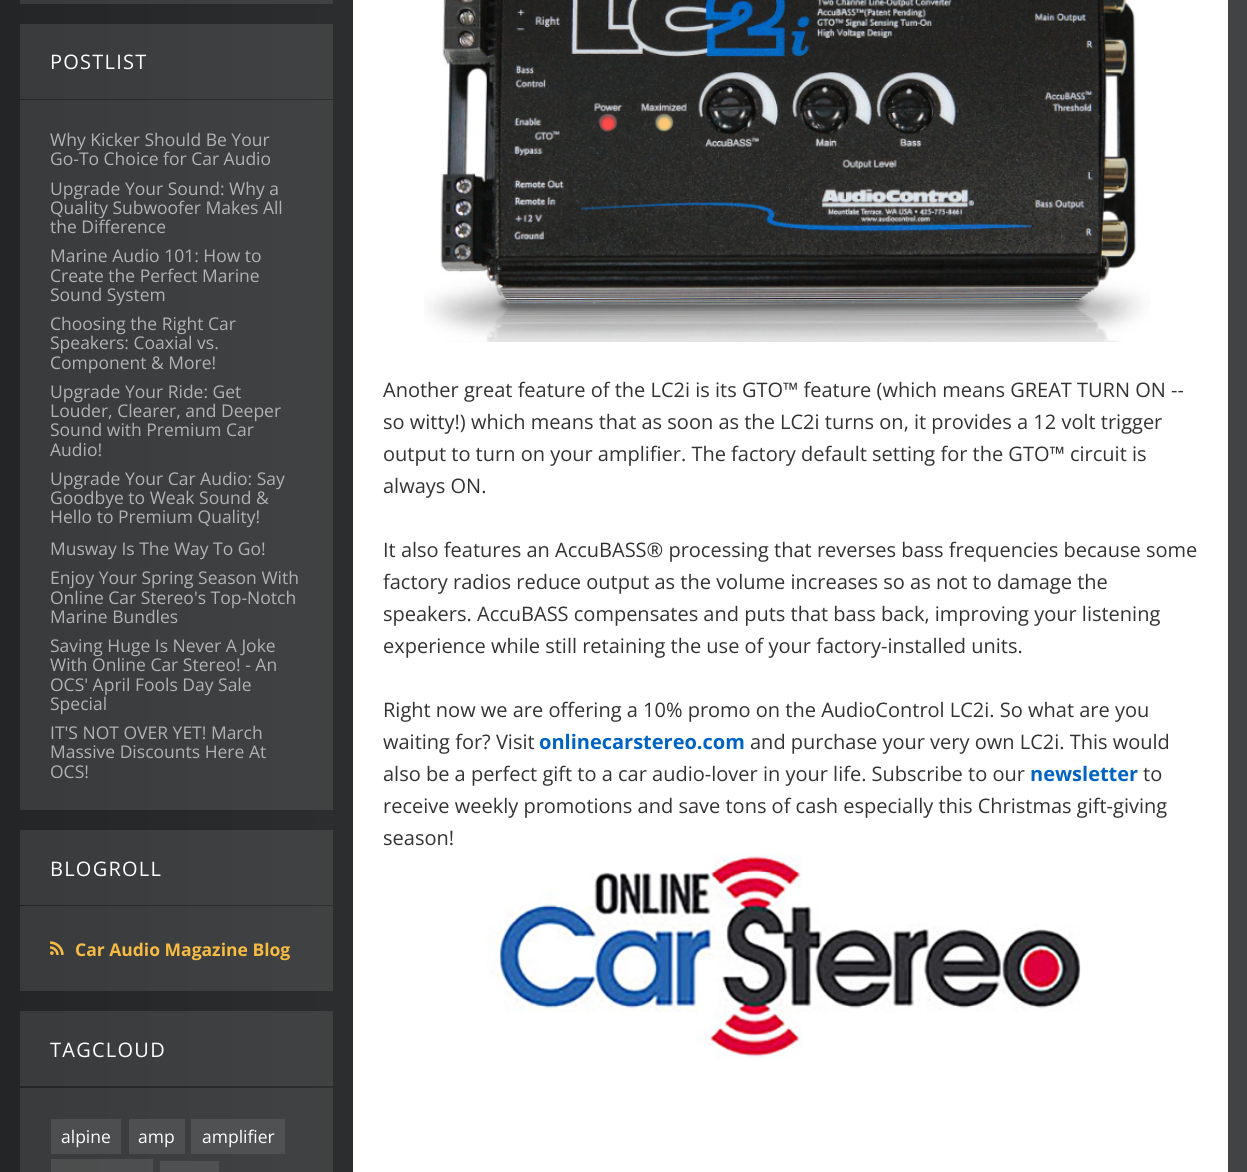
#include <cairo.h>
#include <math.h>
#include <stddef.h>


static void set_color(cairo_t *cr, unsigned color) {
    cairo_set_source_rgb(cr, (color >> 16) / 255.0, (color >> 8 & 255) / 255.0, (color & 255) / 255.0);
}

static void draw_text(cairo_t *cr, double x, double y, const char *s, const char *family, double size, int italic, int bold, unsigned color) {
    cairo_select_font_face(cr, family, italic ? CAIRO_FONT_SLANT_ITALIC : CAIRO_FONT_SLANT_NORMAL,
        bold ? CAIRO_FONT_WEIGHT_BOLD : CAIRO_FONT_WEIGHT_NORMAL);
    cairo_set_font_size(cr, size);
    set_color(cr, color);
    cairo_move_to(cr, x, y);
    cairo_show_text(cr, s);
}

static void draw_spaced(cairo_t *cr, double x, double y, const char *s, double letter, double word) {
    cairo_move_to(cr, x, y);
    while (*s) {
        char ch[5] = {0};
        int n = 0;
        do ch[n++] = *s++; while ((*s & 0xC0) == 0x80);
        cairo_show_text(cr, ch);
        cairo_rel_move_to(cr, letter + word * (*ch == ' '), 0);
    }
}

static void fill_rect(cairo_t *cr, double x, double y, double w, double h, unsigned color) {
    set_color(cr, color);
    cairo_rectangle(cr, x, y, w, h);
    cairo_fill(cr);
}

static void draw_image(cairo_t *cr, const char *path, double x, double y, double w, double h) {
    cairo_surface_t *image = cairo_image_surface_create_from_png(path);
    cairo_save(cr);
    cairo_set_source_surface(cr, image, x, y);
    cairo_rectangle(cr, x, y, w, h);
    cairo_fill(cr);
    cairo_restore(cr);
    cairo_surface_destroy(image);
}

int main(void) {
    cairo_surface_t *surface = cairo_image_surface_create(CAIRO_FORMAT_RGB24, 1247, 1172);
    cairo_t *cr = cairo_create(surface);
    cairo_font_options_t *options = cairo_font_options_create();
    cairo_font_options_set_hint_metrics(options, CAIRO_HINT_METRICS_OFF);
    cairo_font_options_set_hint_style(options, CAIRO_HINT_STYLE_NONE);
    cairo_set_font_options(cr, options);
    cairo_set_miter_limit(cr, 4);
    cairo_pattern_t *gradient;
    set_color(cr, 0xFFFFFF);
    cairo_paint(cr);
    gradient = cairo_pattern_create_linear(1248, -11, 0, -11);
    cairo_pattern_add_color_stop_rgba(gradient, 0, 0.255, 0.263, 0.271, 1);
    cairo_pattern_add_color_stop_rgba(gradient, 1, 0.137, 0.145, 0.149, 1);
    cairo_set_source(cr, gradient);
    cairo_pattern_destroy(gradient);
    cairo_rectangle(cr, 0, 0, 1247, 1172);
    cairo_fill(cr);
    cairo_set_source_rgba(cr, 1, 1, 1, 0.1);
    cairo_rectangle(cr, 20, 0, 313, 4);
    cairo_fill(cr);
    cairo_rectangle(cr, 20, 24, 313, 75);
    cairo_fill(cr);
    cairo_select_font_face(cr, "Open Sans", CAIRO_FONT_SLANT_NORMAL, CAIRO_FONT_WEIGHT_NORMAL);
    cairo_set_font_size(cr, 20);
    set_color(cr, 0xFFFFFF);
    draw_spaced(cr, 50, 69, "POSTLIST", 1.25, 0);
    cairo_set_source_rgba(cr, 1, 1, 1, 0.1);
    cairo_rectangle(cr, 20, 100, 313, 710);
    cairo_fill(cr);
    draw_text(cr, 50, 146, "Why Kicker Should Be Your", "Open Sans", 17.5, 0, 0, 0xB1B2B2);
    draw_text(cr, 50, 165, "Go-To Choice for Car Audio", "Open Sans", 17.5, 0, 0, 0xB1B2B2);
    draw_text(cr, 50, 195, "Upgrade Your Sound: Why a", "Open Sans", 17.5, 0, 0, 0xB1B2B2);
    draw_text(cr, 50, 214, "Quality Subwoofer Makes All", "Open Sans", 17.5, 0, 0, 0xB1B2B2);
    draw_text(cr, 50, 233, "the Difference", "Open Sans", 17.5, 0, 0, 0xB1B2B2);
    draw_text(cr, 50, 262, "Marine Audio 101: How to", "Open Sans", 17.5, 0, 0, 0xB1B2B2);
    draw_text(cr, 50, 282, "Create the Perfect Marine", "Open Sans", 17.5, 0, 0, 0xB1B2B2);
    draw_text(cr, 50, 301, "Sound System", "Open Sans", 17.5, 0, 0, 0xB1B2B2);
    draw_text(cr, 50, 330, "Choosing the Right Car", "Open Sans", 17.5, 0, 0, 0xB1B2B2);
    draw_text(cr, 50, 349, "Speakers: Coaxial vs.", "Open Sans", 17.5, 0, 0, 0xB1B2B2);
    draw_text(cr, 50, 369, "Component & More!", "Open Sans", 17.5, 0, 0, 0xB1B2B2);
    draw_text(cr, 50, 398, "Upgrade Your Ride: Get", "Open Sans", 17.5, 0, 0, 0xB1B2B2);
    draw_text(cr, 50, 417, "Louder, Clearer, and Deeper", "Open Sans", 17.5, 0, 0, 0xB1B2B2);
    draw_text(cr, 50, 436, "Sound with Premium Car", "Open Sans", 17.5, 0, 0, 0xB1B2B2);
    draw_text(cr, 50, 456, "Audio!", "Open Sans", 17.5, 0, 0, 0xB1B2B2);
    draw_text(cr, 50, 485, "Upgrade Your Car Audio: Say", "Open Sans", 17.5, 0, 0, 0xB1B2B2);
    draw_text(cr, 50, 504, "Goodbye to Weak Sound &", "Open Sans", 17.5, 0, 0, 0xB1B2B2);
    draw_text(cr, 50, 523, "Hello to Premium Quality!", "Open Sans", 17.5, 0, 0, 0xB1B2B2);
    draw_text(cr, 50, 555, "Musway Is The Way To Go!", "Open Sans", 17.5, 0, 0, 0xB1B2B2);
    draw_text(cr, 50, 584, "Enjoy Your Spring Season With", "Open Sans", 17.5, 0, 0, 0xB1B2B2);
    draw_text(cr, 50, 604, "Online Car Stereo's Top-Notch", "Open Sans", 17.5, 0, 0, 0xB1B2B2);
    draw_text(cr, 50, 623, "Marine Bundles", "Open Sans", 17.5, 0, 0, 0xB1B2B2);
    draw_text(cr, 50, 652, "Saving Huge Is Never A Joke", "Open Sans", 17.5, 0, 0, 0xB1B2B2);
    draw_text(cr, 50, 671, "With Online Car Stereo! - An", "Open Sans", 17.5, 0, 0, 0xB1B2B2);
    draw_text(cr, 50, 691, "OCS' April Fools Day Sale", "Open Sans", 17.5, 0, 0, 0xB1B2B2);
    draw_text(cr, 50, 710, "Special", "Open Sans", 17.5, 0, 0, 0xB1B2B2);
    draw_text(cr, 50, 739, "IT'S NOT OVER YET! March", "Open Sans", 17.5, 0, 0, 0xB1B2B2);
    draw_text(cr, 50, 758, "Massive Discounts Here At", "Open Sans", 17.5, 0, 0, 0xB1B2B2);
    draw_text(cr, 50, 778, "OCS!", "Open Sans", 17.5, 0, 0, 0xB1B2B2);
    cairo_set_source_rgba(cr, 1, 1, 1, 0.1);
    cairo_rectangle(cr, 20, 830, 313, 75);
    cairo_fill(cr);
    cairo_set_font_size(cr, 20);
    set_color(cr, 0xFFFFFF);
    draw_spaced(cr, 50, 876, "BLOGROLL", 1.25, 0);
    cairo_set_source_rgba(cr, 1, 1, 1, 0.1);
    cairo_rectangle(cr, 20, 906, 313, 85);
    cairo_fill(cr);
    draw_image(cr, "assets/img1.png", 50, 941, 14, 14);
    draw_text(cr, 75, 956, "Car Audio Magazine Blog", "Open Sans", 17.5, 0, 1, 0xF6BB42);
    cairo_set_source_rgba(cr, 1, 1, 1, 0.1);
    cairo_rectangle(cr, 20, 1011, 313, 75);
    cairo_fill(cr);
    cairo_select_font_face(cr, "Open Sans", CAIRO_FONT_SLANT_NORMAL, CAIRO_FONT_WEIGHT_NORMAL);
    cairo_set_font_size(cr, 20);
    set_color(cr, 0xFFFFFF);
    draw_spaced(cr, 50, 1057, "TAGCLOUD", 1.25, 0);
    cairo_set_source_rgba(cr, 1, 1, 1, 0.1);
    cairo_rectangle(cr, 20, 1088, 313, 84);
    cairo_fill(cr);
    fill_rect(cr, 51, 1119, 70, 35, 0x4D4E4F);
    draw_text(cr, 61, 1143, "alpine", "Open Sans", 17.5, 0, 0, 0xFFFFFF);
    fill_rect(cr, 129, 1119, 56, 35, 0x4E4F50);
    draw_text(cr, 138, 1143, "amp", "Open Sans", 17.5, 0, 0, 0xFFFFFF);
    fill_rect(cr, 191, 1119, 94, 35, 0x505152);
    draw_text(cr, 202, 1143, "amplifier", "Open Sans", 17.5, 0, 0, 0xFFFFFF);
    cairo_set_source_rgba(cr, 1, 1, 1, 0.09);
    cairo_rectangle(cr, 51, 1159, 102, 13);
    cairo_fill(cr);
    fill_rect(cr, 160, 1161, 59, 11, 0x4F5051);
    fill_rect(cr, 353, 0, 875, 1172, 0xFFFFFF);
    draw_image(cr, "assets/img2.png", 424, 0, 726, 342);
    draw_text(cr, 383, 397, "Another great feature of the LC2i is its GTO™ feature (which means GREAT TURN ON --", "Open Sans", 20, 0, 0, 0x333333);
    draw_text(cr, 383, 429, "so witty!) which means that as soon as the LC2i turns on, it provides a 12 volt trigger", "Open Sans", 20, 0, 0, 0x333333);
    draw_text(cr, 383, 461, "output to turn on your amplifier. The factory default setting for the GTO™ circuit is", "Open Sans", 20, 0, 0, 0x333333);
    draw_text(cr, 383, 493, "always ON.", "Open Sans", 20, 0, 0, 0x333333);
    draw_text(cr, 383, 557, "It also features an AccuBASS® processing that reverses bass frequencies because some", "Open Sans", 20, 0, 0, 0x333333);
    draw_text(cr, 383, 589, "factory radios reduce output as the volume increases so as not to damage the", "Open Sans", 20, 0, 0, 0x333333);
    draw_text(cr, 383, 621, "speakers. AccuBASS compensates and puts that bass back, improving your listening", "Open Sans", 20, 0, 0, 0x333333);
    draw_text(cr, 383, 653, "experience while still retaining the use of your factory-installed units.", "Open Sans", 20, 0, 0, 0x333333);
    draw_text(cr, 383, 717, "Right now we are offering a 10% promo on the AudioControl LC2i. So what are you", "Open Sans", 20, 0, 0, 0x333333);
    draw_text(cr, 383, 749, "waiting for? Visit", "Open Sans", 20, 0, 0, 0x333333);
    draw_text(cr, 539, 749, "onlinecarstereo.com", "Open Sans", 20, 0, 1, 0x0064C4);
    draw_text(cr, 750, 749, "and purchase your very own LC2i. This would", "Open Sans", 20, 0, 0, 0x333333);
    draw_text(cr, 383, 781, "also be a perfect gift to a car audio-lover in your life. Subscribe to our", "Open Sans", 20, 0, 0, 0x333333);
    draw_text(cr, 1030, 781, "newsletter", "Open Sans", 20, 0, 1, 0x0064C4);
    draw_text(cr, 1143, 781, "to", "Open Sans", 20, 0, 0, 0x333333);
    draw_text(cr, 383, 813, "receive weekly promotions and save tons of cash especially this Christmas gift-giving", "Open Sans", 20, 0, 0, 0x333333);
    draw_text(cr, 383, 845, "season!", "Open Sans", 20, 0, 0, 0x333333);
    draw_image(cr, "assets/img3.png", 487, 854, 594, 204);
    cairo_surface_write_to_png(surface, "output.png");
    cairo_font_options_destroy(options);
    cairo_destroy(cr);
    cairo_surface_destroy(surface);
    return 0;
}
